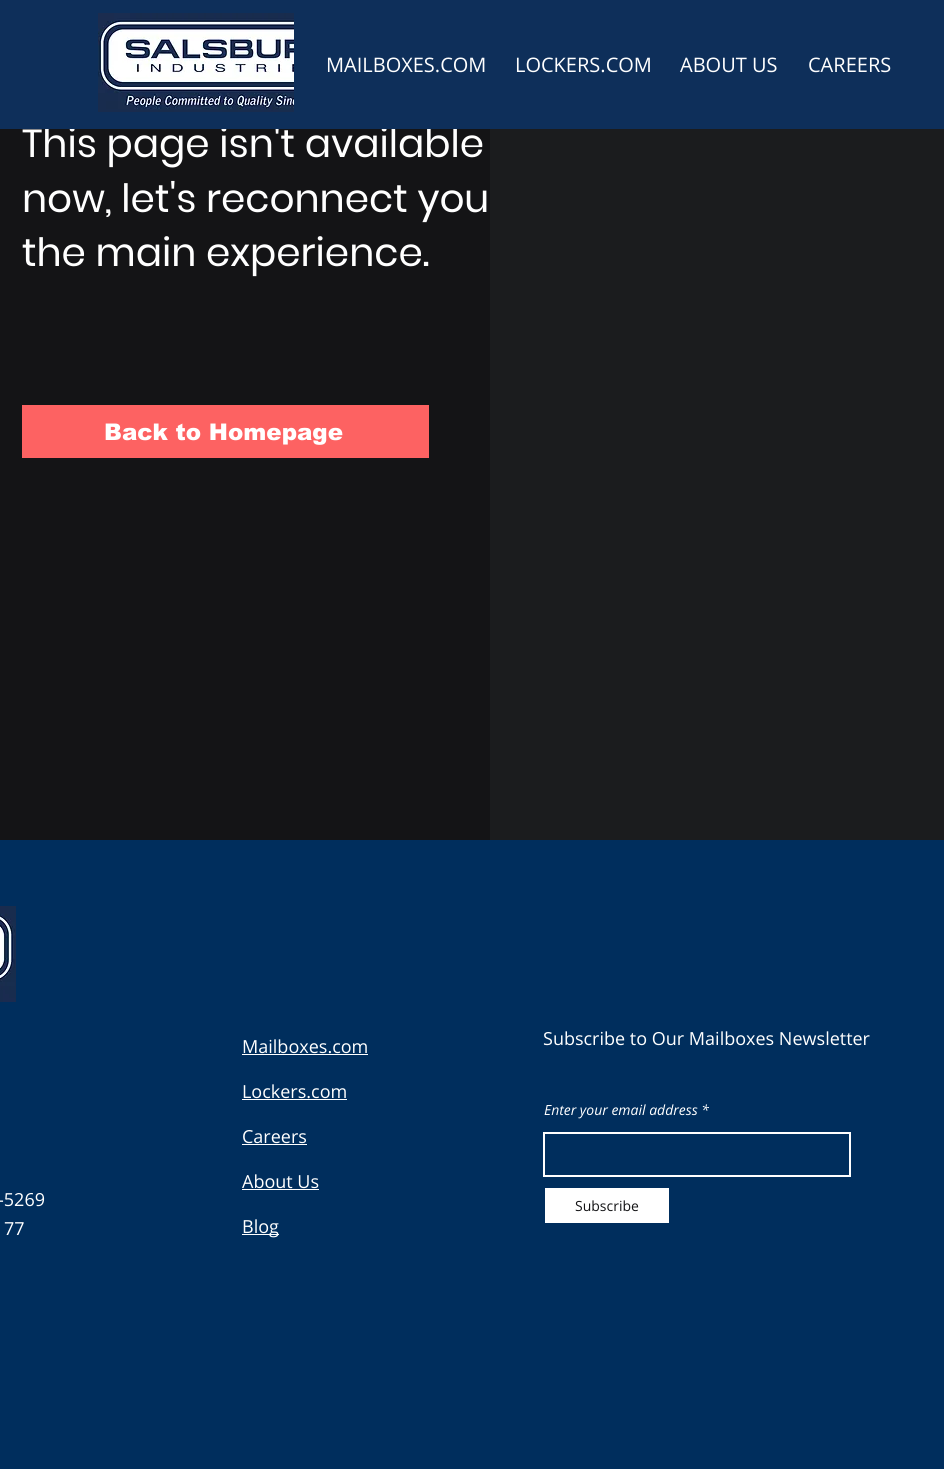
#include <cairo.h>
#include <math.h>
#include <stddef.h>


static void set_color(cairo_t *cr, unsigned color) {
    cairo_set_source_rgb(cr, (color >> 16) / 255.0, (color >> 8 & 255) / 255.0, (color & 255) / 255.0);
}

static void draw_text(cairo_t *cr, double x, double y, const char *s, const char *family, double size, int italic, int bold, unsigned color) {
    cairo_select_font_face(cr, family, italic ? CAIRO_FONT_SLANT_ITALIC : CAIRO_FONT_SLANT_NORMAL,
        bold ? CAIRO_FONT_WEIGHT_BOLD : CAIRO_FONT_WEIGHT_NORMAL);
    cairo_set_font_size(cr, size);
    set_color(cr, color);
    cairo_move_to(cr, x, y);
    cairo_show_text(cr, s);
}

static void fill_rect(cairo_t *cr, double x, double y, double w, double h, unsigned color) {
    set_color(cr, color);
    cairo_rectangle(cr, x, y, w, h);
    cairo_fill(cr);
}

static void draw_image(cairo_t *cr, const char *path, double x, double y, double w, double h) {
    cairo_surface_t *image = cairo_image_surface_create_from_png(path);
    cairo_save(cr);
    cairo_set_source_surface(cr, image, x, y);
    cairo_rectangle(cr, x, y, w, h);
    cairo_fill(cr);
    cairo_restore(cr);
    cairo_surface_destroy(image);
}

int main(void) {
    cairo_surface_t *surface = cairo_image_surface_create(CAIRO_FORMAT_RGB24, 944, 1469);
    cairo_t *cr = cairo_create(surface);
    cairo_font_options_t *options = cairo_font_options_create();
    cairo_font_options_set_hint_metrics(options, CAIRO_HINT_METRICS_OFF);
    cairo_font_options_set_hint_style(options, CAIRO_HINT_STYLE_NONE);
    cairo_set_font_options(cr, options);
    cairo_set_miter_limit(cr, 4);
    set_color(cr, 0x141416);
    cairo_paint(cr);
    draw_text(cr, 22, 157, "This page isn't available", "Poppins", 39, 0, 0, 0xFFFFFF);
    fill_rect(cr, 0, 0, 944, 129, 0x0E2F5A);
    draw_image(cr, "assets/img1.png", 98, 13, 196, 99);
    draw_text(cr, 326, 72, "MAILBOXES.COM", "Open Sans", 20, 0, 0, 0xFFFFFF);
    draw_text(cr, 515, 72, "LOCKERS.COM", "Open Sans", 20, 0, 0, 0xFFFFFF);
    draw_text(cr, 680, 72, "ABOUT US", "Open Sans", 20, 0, 0, 0xFFFFFF);
    draw_text(cr, 808, 72, "CAREERS", "Open Sans", 20, 0, 0, 0xFFFFFF);
    draw_text(cr, 22, 212, "now, let's reconnect you", "Poppins", 39, 0, 0, 0xFFFFFF);
    draw_text(cr, 22, 266, "the main experience.", "Poppins", 39, 0, 0, 0xFFFFFF);
    fill_rect(cr, 22, 405, 407, 53, 0xFD6262);
    draw_text(cr, 104, 440, "Back to Homepage", "arial Black", 23, 0, 0, 0xFFFFFF);
    fill_rect(cr, 490, 129, 454, 711, 0x1B1C1E);
    fill_rect(cr, 0, 840, 944, 629, 0x002E5D);
    draw_image(cr, "assets/img2.png", 0, 906, 16, 96);
    draw_text(cr, 242, 1053, "Mailboxes.com", "Open Sans", 18, 0, 0, 0xFFFFFF);
    fill_rect(cr, 242, 1054, 126, 1, 0xFFFFFF);
    draw_text(cr, 242, 1098, "Lockers.com", "Open Sans", 18, 0, 0, 0xFFFFFF);
    fill_rect(cr, 242, 1099, 105, 1, 0xFFFFFF);
    draw_text(cr, 242, 1143, "Careers", "Open Sans", 18, 0, 0, 0xFFFFFF);
    fill_rect(cr, 242, 1144, 65, 1, 0xFFFFFF);
    draw_text(cr, 242, 1188, "About Us", "Open Sans", 18, 0, 0, 0xFFFFFF);
    fill_rect(cr, 242, 1189, 77, 1, 0xFFFFFF);
    fill_rect(cr, 242, 1234, 37, 1, 0xFFFFFF);
    draw_text(cr, 242, 1233, "Blog", "Open Sans", 18, 0, 0, 0xFFFFFF);
    draw_text(cr, 543, 1045, "Subscribe to Our Mailboxes Newsletter", "Open Sans", 18, 0, 0, 0xFFFFFF);
    draw_text(cr, -2, 1206, "-5269", "Open Sans", 18, 0, 0, 0xFFFFFF);
    draw_text(cr, 4, 1235, "77", "Open Sans", 18, 0, 0, 0xFFFFFF);
    draw_text(cr, 544, 1115, "Enter your email address *", "Open Sans", 14, 1, 0, 0xFFFFFF);
    cairo_rectangle(cr, 544, 1133, 306, 43);
    cairo_stroke(cr);
    fill_rect(cr, 545, 1188, 124, 35, 0xFFFFFF);
    draw_text(cr, 575, 1211, "Subscribe", "Open Sans", 14, 0, 0, 0x141416);
    cairo_surface_write_to_png(surface, "output.png");
    cairo_font_options_destroy(options);
    cairo_destroy(cr);
    cairo_surface_destroy(surface);
    return 0;
}
